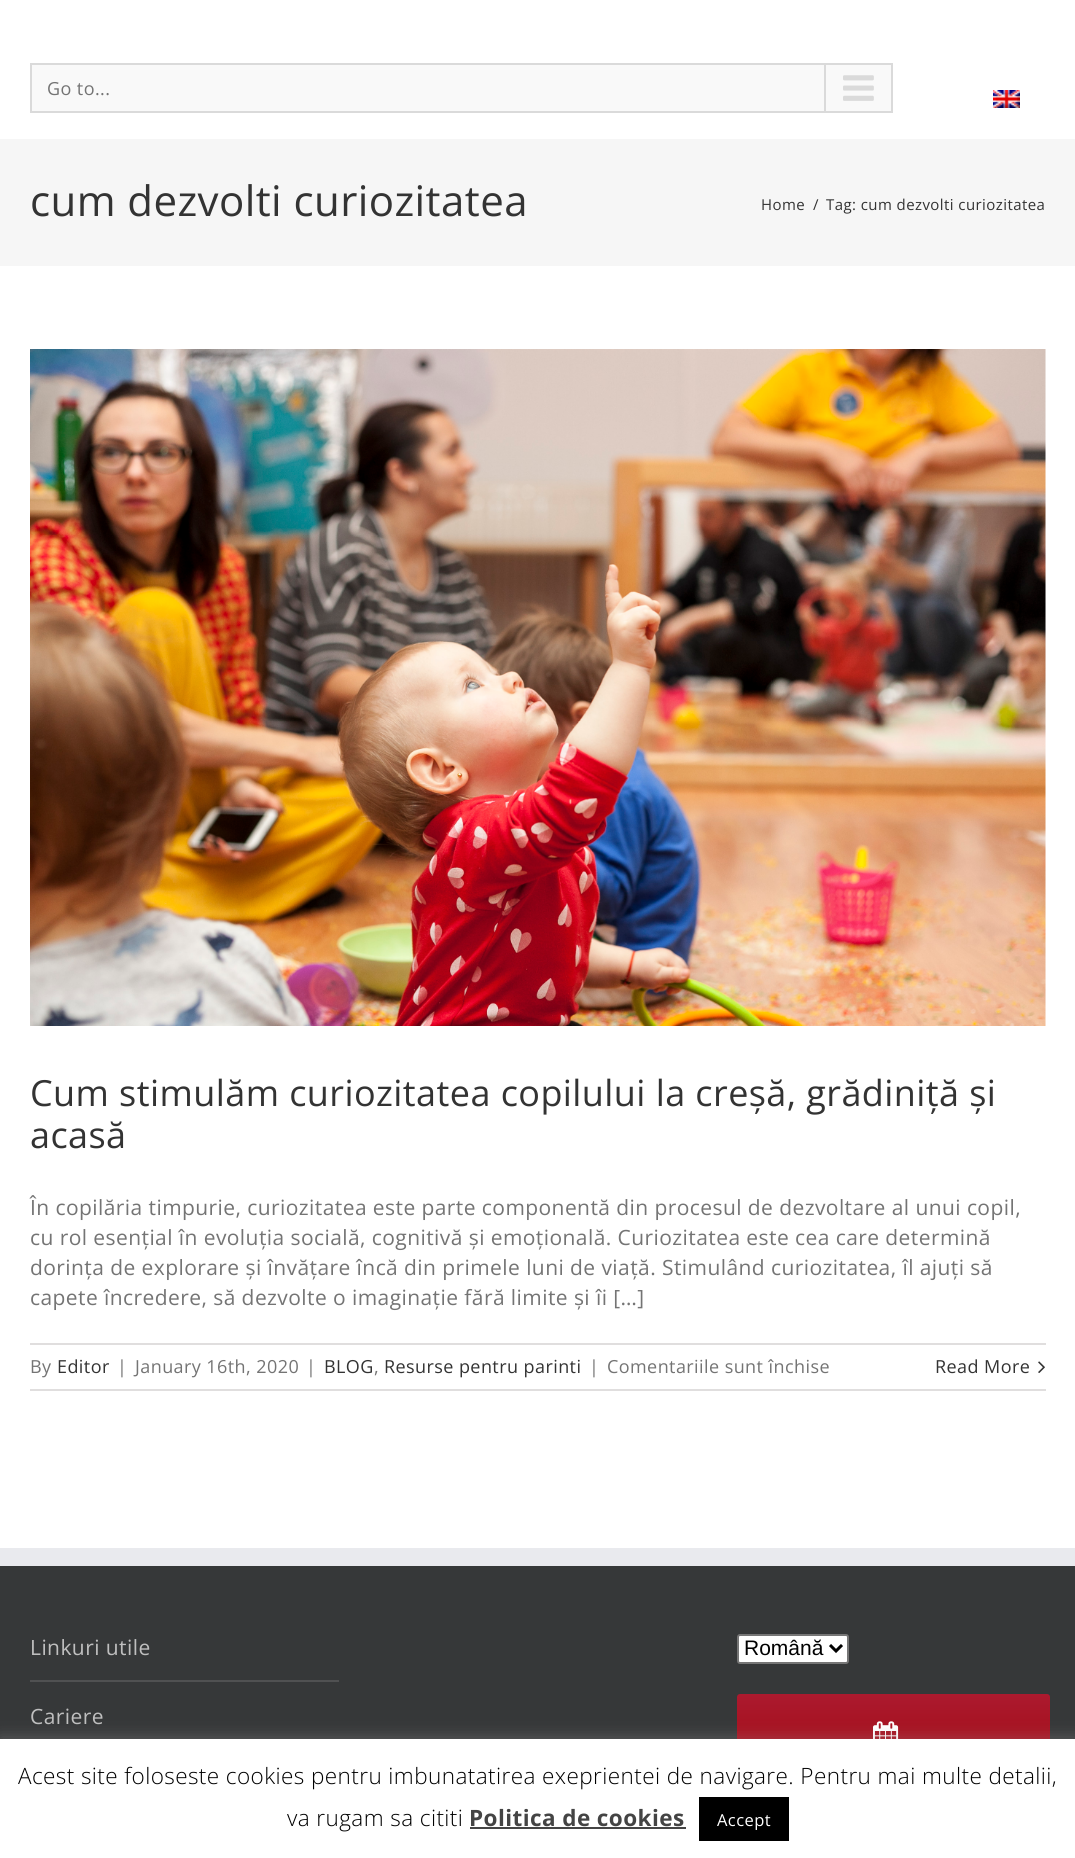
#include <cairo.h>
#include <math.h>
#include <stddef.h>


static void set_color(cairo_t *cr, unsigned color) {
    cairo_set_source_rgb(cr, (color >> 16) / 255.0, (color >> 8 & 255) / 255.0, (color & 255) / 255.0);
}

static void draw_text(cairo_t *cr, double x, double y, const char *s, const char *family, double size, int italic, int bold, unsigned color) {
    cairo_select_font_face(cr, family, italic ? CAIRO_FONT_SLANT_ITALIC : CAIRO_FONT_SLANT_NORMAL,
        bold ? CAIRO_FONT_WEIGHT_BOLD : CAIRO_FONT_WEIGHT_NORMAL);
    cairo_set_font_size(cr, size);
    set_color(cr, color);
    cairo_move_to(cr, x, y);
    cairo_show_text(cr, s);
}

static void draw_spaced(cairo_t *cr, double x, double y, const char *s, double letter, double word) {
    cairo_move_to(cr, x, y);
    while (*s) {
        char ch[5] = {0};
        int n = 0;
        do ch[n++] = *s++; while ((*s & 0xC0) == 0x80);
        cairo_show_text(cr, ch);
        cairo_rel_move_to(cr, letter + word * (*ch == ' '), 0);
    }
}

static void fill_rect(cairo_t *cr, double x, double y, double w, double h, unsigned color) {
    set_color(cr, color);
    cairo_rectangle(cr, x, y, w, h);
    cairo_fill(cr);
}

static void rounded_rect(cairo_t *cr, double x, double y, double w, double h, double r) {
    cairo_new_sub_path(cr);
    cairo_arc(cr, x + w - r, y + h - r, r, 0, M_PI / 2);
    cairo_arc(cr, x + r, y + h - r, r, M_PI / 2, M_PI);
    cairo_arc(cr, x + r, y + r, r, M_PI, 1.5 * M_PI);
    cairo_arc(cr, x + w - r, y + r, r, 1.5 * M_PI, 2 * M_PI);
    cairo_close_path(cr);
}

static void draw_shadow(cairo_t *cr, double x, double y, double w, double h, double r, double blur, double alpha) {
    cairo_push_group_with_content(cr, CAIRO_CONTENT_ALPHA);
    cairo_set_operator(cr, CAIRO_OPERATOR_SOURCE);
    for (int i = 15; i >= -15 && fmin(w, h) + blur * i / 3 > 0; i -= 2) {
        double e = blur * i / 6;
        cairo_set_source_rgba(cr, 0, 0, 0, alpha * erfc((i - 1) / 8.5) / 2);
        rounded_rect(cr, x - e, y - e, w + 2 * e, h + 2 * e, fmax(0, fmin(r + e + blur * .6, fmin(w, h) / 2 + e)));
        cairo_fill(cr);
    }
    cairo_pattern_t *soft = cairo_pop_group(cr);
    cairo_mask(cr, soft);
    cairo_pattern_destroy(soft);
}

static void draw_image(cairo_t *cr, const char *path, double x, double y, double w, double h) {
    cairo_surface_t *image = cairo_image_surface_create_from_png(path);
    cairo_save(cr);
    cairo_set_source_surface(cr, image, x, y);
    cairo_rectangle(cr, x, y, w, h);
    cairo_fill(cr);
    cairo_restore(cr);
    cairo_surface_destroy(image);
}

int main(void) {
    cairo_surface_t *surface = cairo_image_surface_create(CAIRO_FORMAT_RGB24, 1075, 1858);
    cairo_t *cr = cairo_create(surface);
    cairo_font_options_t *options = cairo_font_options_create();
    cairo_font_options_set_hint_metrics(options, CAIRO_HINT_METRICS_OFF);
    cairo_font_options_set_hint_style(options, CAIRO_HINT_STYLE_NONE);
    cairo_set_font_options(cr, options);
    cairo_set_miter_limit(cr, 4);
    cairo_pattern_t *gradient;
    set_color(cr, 0xFFFFFF);
    cairo_paint(cr);
    set_color(cr, 0xF9F9F9);
    cairo_rectangle(cr, 31, 64, 861, 48);
    cairo_fill_preserve(cr);
    set_color(cr, 0xDADADA);
    cairo_stroke(cr);
    cairo_select_font_face(cr, "Open Sans", CAIRO_FONT_SLANT_NORMAL, CAIRO_FONT_WEIGHT_NORMAL);
    cairo_set_font_size(cr, 18);
    set_color(cr, 0x747474);
    draw_spaced(cr, 47, 95, "Go to...", 0.42, 0);
    fill_rect(cr, 824, 65, 2, 46, 0xDADADA);
    draw_image(cr, "assets/img1.png", 843, 75, 31, 26);
    draw_image(cr, "assets/img2.png", 993, 90, 27, 18);
    fill_rect(cr, 0, 139, 1075, 127, 0xF6F6F6);
    cairo_set_font_size(cr, 42);
    set_color(cr, 0x333333);
    draw_spaced(cr, 30, 216, "cum dezvolti curiozitatea", 0.42, 0);
    cairo_set_font_size(cr, 15);
    draw_spaced(cr, 761, 210, "Home", 0.42, 0);
    draw_spaced(cr, 813, 210, "/", 0.42, 0);
    draw_spaced(cr, 826, 210, "Tag: cum dezvolti curiozitatea", 0.42, 0);
    draw_image(cr, "assets/img3.png", 30, 349, 1016, 677);
    cairo_set_font_size(cr, 36);
    draw_spaced(cr, 30, 1106, "Cum stimulăm curiozitatea copilului la creșă, grădiniță și", 0.42, 0);
    draw_spaced(cr, 30, 1148, "acasă", 0.42, 0);
    cairo_set_font_size(cr, 21);
    set_color(cr, 0x747474);
    draw_spaced(cr, 30, 1215, "În copilăria timpurie, curiozitatea este parte componentă din procesul de dezvoltare al unui copil,", 0.42, 0);
    draw_spaced(cr, 30, 1245, "cu rol esențial în evoluția socială, cognitivă și emoțională. Curiozitatea este cea care determină", 0.42, 0);
    draw_spaced(cr, 30, 1275, "dorința de explorare și învățare încă din primele luni de viață. Stimulând curiozitatea, îl ajuți să", 0.42, 0);
    draw_spaced(cr, 30, 1305, "capete încredere, să dezvolte o imaginație fără limite și îi […]", 0.42, 0);
    fill_rect(cr, 30, 1343, 1016, 2, 0xE0DEDE);
    fill_rect(cr, 30, 1389, 1016, 2, 0xE0DEDE);
    cairo_set_font_size(cr, 18);
    set_color(cr, 0x747474);
    draw_spaced(cr, 30, 1373, "By", 0.42, 0);
    set_color(cr, 0x333333);
    draw_spaced(cr, 57, 1373, "Editor", 0.42, 0);
    set_color(cr, 0x747474);
    draw_spaced(cr, 117, 1373, "|", 0.42, 0);
    draw_spaced(cr, 135, 1373, "January 16th, 2020", 0.42, 0);
    draw_spaced(cr, 306, 1373, "|", 0.42, 0);
    set_color(cr, 0x333333);
    draw_spaced(cr, 324, 1373, "BLOG", 0.42, 0);
    set_color(cr, 0x747474);
    draw_spaced(cr, 374, 1373, ",", 0.42, 0);
    set_color(cr, 0x333333);
    draw_spaced(cr, 384, 1373, "Resurse pentru parinti", 0.42, 0);
    set_color(cr, 0x747474);
    draw_spaced(cr, 589, 1373, "|", 0.42, 0);
    draw_spaced(cr, 607, 1373, "Comentariile sunt închise", 0.42, 0);
    set_color(cr, 0x333333);
    draw_spaced(cr, 935, 1373, "Read More", 0.42, 0);
    draw_image(cr, "assets/img4.png", 1038, 1361, 7, 12);
    fill_rect(cr, 0, 1566, 1075, 173, 0x363839);
    fill_rect(cr, 0, 1548, 1075, 18, 0xE9EAEE);
    fill_rect(cr, 30, 1680, 309, 2, 0x505152);
    cairo_set_font_size(cr, 21);
    set_color(cr, 0xBFBFBF);
    draw_spaced(cr, 30, 1655, "Linkuri utile", 0.42, 0);
    draw_spaced(cr, 30, 1724, "Cariere", 0.42, 0);
    set_color(cr, 0xFFFFFF);
    rounded_rect(cr, 738, 1635, 110, 28, 2);
    cairo_fill_preserve(cr);
    set_color(cr, 0x767676);
    cairo_stroke(cr);
    cairo_new_path(cr);
    cairo_move_to(cr, 830, 1645);
    cairo_line_to(cr, 836, 1651);
    cairo_line_to(cr, 842, 1645);
    set_color(cr, 0x000000);
    cairo_set_line_width(cr, 3);
    cairo_stroke(cr);
    draw_text(cr, 744, 1655, "Română", "Liberation Sans", 21, 0, 0, 0x000000);
    gradient = cairo_pattern_create_linear(893, 1812, 893, 1694);
    cairo_pattern_add_color_stop_rgba(gradient, 0, 0.6, 0, 0, 1);
    cairo_pattern_add_color_stop_rgba(gradient, 1, 0.675, 0.102, 0.184, 1);
    cairo_set_source(cr, gradient);
    cairo_pattern_destroy(gradient);
    rounded_rect(cr, 737, 1694, 313, 118, 3);
    cairo_fill(cr);
    draw_image(cr, "assets/img5.png", 873, 1721, 26, 18);
    set_color(cr, 0xACABAB);
    draw_shadow(cr, 0, 1737, 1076, 120, 0, 7.5, 0.3);
    fill_rect(cr, 0, 1739, 1075, 119, 0xFFFFFF);
    cairo_select_font_face(cr, "Open Sans Light", CAIRO_FONT_SLANT_NORMAL, CAIRO_FONT_WEIGHT_NORMAL);
    cairo_set_font_size(cr, 22.5);
    set_color(cr, 0x000000);
    draw_spaced(cr, 18, 1784, "Acest site foloseste cookies pentru imbunatatirea exeprientei de navigare. Pentru mai multe detalii,", 0.42, 0);
    draw_spaced(cr, 287, 1826, "va rugam sa cititi", 0.42, 0);
    cairo_select_font_face(cr, "Open Sans", CAIRO_FONT_SLANT_NORMAL, CAIRO_FONT_WEIGHT_BOLD);
    set_color(cr, 0x444444);
    draw_spaced(cr, 469, 1826, "Politica de cookies", 0.42, 0);
    fill_rect(cr, 470, 1827, 216, 2, 0x444444);
    fill_rect(cr, 699, 1797, 90, 44, 0x000000);
    cairo_select_font_face(cr, "Open Sans", CAIRO_FONT_SLANT_NORMAL, CAIRO_FONT_WEIGHT_NORMAL);
    cairo_set_font_size(cr, 16.5);
    set_color(cr, 0xFFFFFF);
    draw_spaced(cr, 717, 1826, "Accept", 0.42, 0);
    cairo_surface_write_to_png(surface, "output.png");
    cairo_font_options_destroy(options);
    cairo_destroy(cr);
    cairo_surface_destroy(surface);
    return 0;
}
